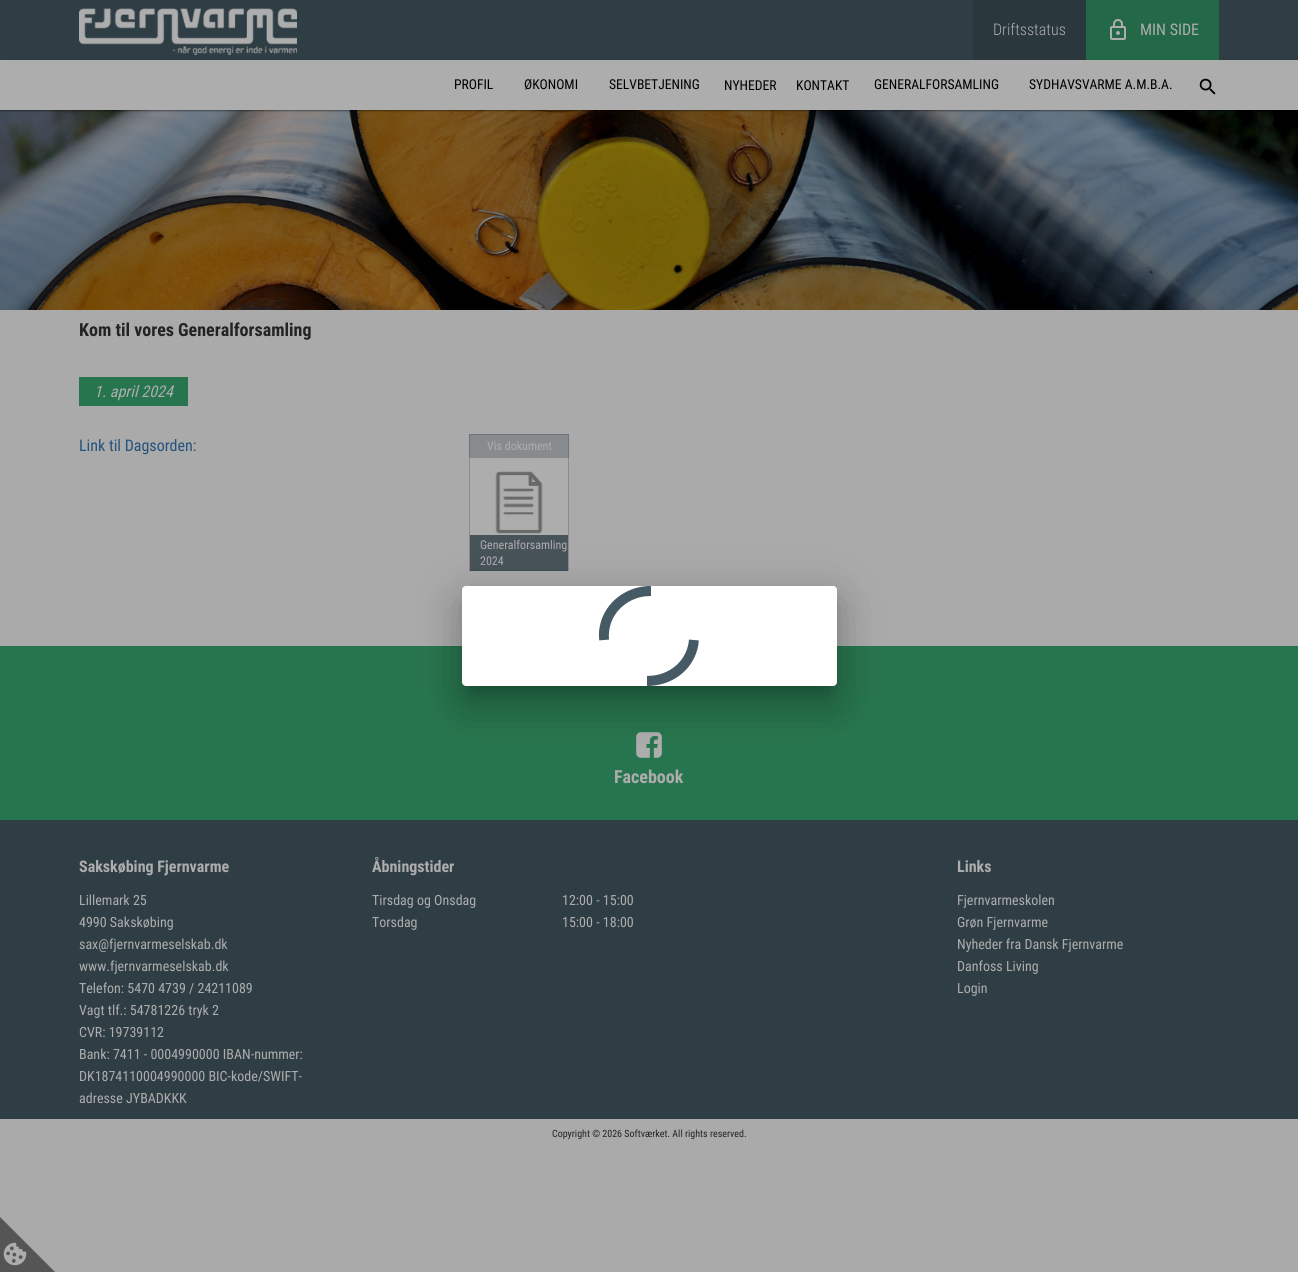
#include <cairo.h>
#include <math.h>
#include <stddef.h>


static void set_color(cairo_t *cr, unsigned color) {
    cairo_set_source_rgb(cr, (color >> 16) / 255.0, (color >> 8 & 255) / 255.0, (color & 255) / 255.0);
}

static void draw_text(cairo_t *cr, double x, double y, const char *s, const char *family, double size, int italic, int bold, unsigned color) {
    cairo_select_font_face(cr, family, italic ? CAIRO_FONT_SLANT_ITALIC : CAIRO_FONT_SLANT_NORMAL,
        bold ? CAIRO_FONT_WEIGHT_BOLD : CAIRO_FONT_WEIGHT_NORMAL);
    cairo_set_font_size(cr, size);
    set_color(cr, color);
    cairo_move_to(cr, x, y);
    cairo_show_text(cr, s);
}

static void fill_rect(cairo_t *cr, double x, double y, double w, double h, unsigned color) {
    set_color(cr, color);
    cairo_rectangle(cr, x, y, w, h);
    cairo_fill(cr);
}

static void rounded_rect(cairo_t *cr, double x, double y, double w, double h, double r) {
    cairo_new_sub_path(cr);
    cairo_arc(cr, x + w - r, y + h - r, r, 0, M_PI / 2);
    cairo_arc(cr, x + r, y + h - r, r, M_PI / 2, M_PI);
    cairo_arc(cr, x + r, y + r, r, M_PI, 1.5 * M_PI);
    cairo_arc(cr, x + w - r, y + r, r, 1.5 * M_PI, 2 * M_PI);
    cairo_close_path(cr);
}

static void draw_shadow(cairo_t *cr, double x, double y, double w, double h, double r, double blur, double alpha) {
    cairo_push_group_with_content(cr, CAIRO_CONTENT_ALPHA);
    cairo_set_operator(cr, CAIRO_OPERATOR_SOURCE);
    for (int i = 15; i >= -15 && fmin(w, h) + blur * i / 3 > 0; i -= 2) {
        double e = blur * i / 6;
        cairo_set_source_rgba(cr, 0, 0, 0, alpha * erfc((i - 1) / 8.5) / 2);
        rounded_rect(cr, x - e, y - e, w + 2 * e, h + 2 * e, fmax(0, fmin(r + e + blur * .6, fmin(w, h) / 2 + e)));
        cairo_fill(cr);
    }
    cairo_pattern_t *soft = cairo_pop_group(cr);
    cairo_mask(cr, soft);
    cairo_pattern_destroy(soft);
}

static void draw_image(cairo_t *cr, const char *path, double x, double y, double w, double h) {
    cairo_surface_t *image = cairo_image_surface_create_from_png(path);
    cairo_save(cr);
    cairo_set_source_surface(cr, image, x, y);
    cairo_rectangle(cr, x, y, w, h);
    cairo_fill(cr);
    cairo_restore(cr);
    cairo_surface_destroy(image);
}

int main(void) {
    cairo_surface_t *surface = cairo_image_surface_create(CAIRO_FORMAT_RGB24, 1298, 1272);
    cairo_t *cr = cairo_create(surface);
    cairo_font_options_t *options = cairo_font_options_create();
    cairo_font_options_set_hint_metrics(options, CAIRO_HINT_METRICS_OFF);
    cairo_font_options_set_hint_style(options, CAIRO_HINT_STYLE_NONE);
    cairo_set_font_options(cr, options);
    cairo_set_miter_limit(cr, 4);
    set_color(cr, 0xAAAAAA);
    cairo_paint(cr);
    fill_rect(cr, 0, 0, 1298, 60, 0x2F3D44);
    draw_image(cr, "assets/img1.png", 79, 8, 218, 47);
    fill_rect(cr, 973, 0, 113, 60, 0x2A373D);
    draw_text(cr, 993, 35, "Driftsstatus", "Roboto Condensed Light", 16, 0, 0, 0xADADAD);
    fill_rect(cr, 1086, 0, 133, 60, 0x236947);
    draw_image(cr, "assets/img2.png", 1110, 19, 16, 21);
    draw_text(cr, 1140, 35, "MIN SIDE", "Roboto Condensed", 16, 0, 0, 0xADADAD);
    draw_image(cr, "assets/img4.png", 0, 110, 1298, 200);
    set_color(cr, 0x000000);
    draw_shadow(cr, 0, 61, 1298, 50, 0, 1.5, 0.12);
    draw_shadow(cr, 0, 61, 1298, 50, 0, 0.5, 0.14);
    draw_shadow(cr, 1, 63, 1296, 48, 0, 0.5, 0.2);
    fill_rect(cr, 0, 60, 1298, 50, 0xADADAD);
    draw_text(cr, 454, 89, "PROFIL", "Roboto Condensed", 13.6, 0, 0, 0x000000);
    draw_text(cr, 524, 89, "ØKONOMI", "Roboto Condensed", 13.6, 0, 0, 0x000000);
    draw_text(cr, 609, 89, "SELVBETJENING", "Roboto Condensed", 13.6, 0, 0, 0x000000);
    draw_text(cr, 724, 90, "NYHEDER", "Roboto Condensed", 13.6, 0, 0, 0x000000);
    draw_text(cr, 796, 90, "KONTAKT", "Roboto Condensed", 13.6, 0, 0, 0x000000);
    draw_text(cr, 874, 89, "GENERALFORSAMLING", "Roboto Condensed", 13.6, 0, 0, 0x000000);
    draw_text(cr, 1029, 89, "SYDHAVSVARME A.M.B.A.", "Roboto Condensed", 13.6, 0, 0, 0x000000);
    draw_image(cr, "assets/img3.png", 1199, 78, 17, 17);
    draw_text(cr, 79, 336, "Kom til vores Generalforsamling", "Roboto Condensed", 18, 0, 1, 0x232323);
    fill_rect(cr, 79, 377, 109, 29, 0x27754E);
    draw_text(cr, 94, 397, "1. april 2024", "Roboto Condensed", 16, 1, 0, 0xADADAD);
    draw_text(cr, 79, 451, "Link til Dagsorden:", "Roboto Condensed", 16, 0, 0, 0x23537C);
    cairo_rectangle(cr, 469.5, 434.5, 99, 136);
    set_color(cr, 0x8B8B8B);
    cairo_set_line_width(cr, 1);
    cairo_stroke(cr);
    draw_image(cr, "assets/img5.png", 470, 435, 98, 135);
    cairo_set_source_rgba(cr, 0.184, 0.239, 0.267, 0.3);
    cairo_rectangle(cr, 469, 434, 100, 24);
    cairo_fill(cr);
    draw_text(cr, 487, 450, "Vis dokument", "Roboto Condensed", 12, 0, 0, 0xADADAD);
    cairo_set_source_rgba(cr, 0.184, 0.239, 0.267, 0.8);
    cairo_rectangle(cr, 470, 535, 98, 36);
    cairo_fill(cr);
    draw_text(cr, 480, 549, "Generalforsamling", "Roboto Condensed", 12, 0, 0, 0xADADAD);
    draw_text(cr, 480, 565, "2024", "Roboto Condensed", 12, 0, 0, 0xADADAD);
    fill_rect(cr, 0, 646, 1298, 174, 0x27754E);
    draw_image(cr, "assets/img6.png", 636, 732, 26, 26);
    draw_text(cr, 614, 783, "Facebook", "Roboto Condensed", 18, 0, 1, 0xADADAD);
    fill_rect(cr, 0, 820, 1298, 299, 0x2F3D44);
    draw_text(cr, 79, 872, "Sakskøbing Fjernvarme", "Roboto Condensed", 16, 0, 1, 0xADADAD);
    draw_text(cr, 79, 905, "Lillemark 25", "Roboto Condensed", 14, 0, 0, 0xADADAD);
    draw_text(cr, 79, 927, "4990 Sakskøbing", "Roboto Condensed", 14, 0, 0, 0xADADAD);
    draw_text(cr, 79, 949, "sax@fjernvarmeselskab.dk", "Roboto Condensed", 14, 0, 0, 0xADADAD);
    draw_text(cr, 79, 971, "www.fjernvarmeselskab.dk", "Roboto Condensed", 14, 0, 0, 0xADADAD);
    draw_text(cr, 79, 993, "Telefon: 5470 4739 / 24211089", "Roboto Condensed", 14, 0, 0, 0xADADAD);
    draw_text(cr, 79, 1015, "Vagt tlf.: 54781226 tryk 2", "Roboto Condensed", 14, 0, 0, 0xADADAD);
    draw_text(cr, 79, 1037, "CVR: 19739112", "Roboto Condensed", 14, 0, 0, 0xADADAD);
    draw_text(cr, 79, 1059, "Bank: 7411 - 0004990000 IBAN-nummer:", "Roboto Condensed", 14, 0, 0, 0xADADAD);
    draw_text(cr, 79, 1081, "DK1874110004990000 BIC-kode/SWIFT-", "Roboto Condensed", 14, 0, 0, 0xADADAD);
    draw_text(cr, 79, 1103, "adresse JYBADKKK", "Roboto Condensed", 14, 0, 0, 0xADADAD);
    draw_text(cr, 372, 872, "Åbningstider", "Roboto Condensed", 16, 0, 1, 0xADADAD);
    draw_text(cr, 372, 905, "Tirsdag og Onsdag", "Roboto Condensed", 14, 0, 0, 0xADADAD);
    draw_text(cr, 562, 905, "12:00 - 15:00", "Roboto Condensed", 14, 0, 0, 0xADADAD);
    draw_text(cr, 372, 927, "Torsdag", "Roboto Condensed", 14, 0, 0, 0xADADAD);
    draw_text(cr, 562, 927, "15:00 - 18:00", "Roboto Condensed", 14, 0, 0, 0xADADAD);
    draw_text(cr, 957, 872, "Links", "Roboto Condensed", 16, 0, 1, 0xADADAD);
    draw_text(cr, 957, 905, "Fjernvarmeskolen", "Roboto Condensed", 14, 0, 0, 0xADADAD);
    draw_text(cr, 957, 927, "Grøn Fjernvarme", "Roboto Condensed", 14, 0, 0, 0xADADAD);
    draw_text(cr, 957, 949, "Nyheder fra Dansk Fjernvarme", "Roboto Condensed", 14, 0, 0, 0xADADAD);
    draw_text(cr, 957, 971, "Danfoss Living", "Roboto Condensed", 14, 0, 0, 0xADADAD);
    draw_text(cr, 957, 993, "Login", "Roboto Condensed", 14, 0, 0, 0xADADAD);
    draw_text(cr, 552, 1137, "Copyright © 2026 Softværket. All rights reserved.", "Roboto Condensed", 10, 0, 0, 0x232323);
    set_color(cr, 0x000000);
    draw_shadow(cr, 454, 587, 391, 116, 12, 23, 0.12);
    draw_shadow(cr, 459, 607, 381, 106, 7, 19, 0.14);
    draw_shadow(cr, 469, 604, 361, 86, 0, 7.5, 0.2);
    set_color(cr, 0xFFFFFF);
    rounded_rect(cr, 462, 586, 375, 100, 4);
    cairo_fill(cr);
    cairo_save(cr);
    cairo_rectangle(cr, 599, 586, 50, 100);
    cairo_clip(cr);
    cairo_new_path(cr);
    cairo_move_to(cr, 603.5, 690);
    cairo_line_to(cr, 595, 590.5);
    cairo_line_to(cr, 694.5, 582);
    cairo_line_to(cr, 703, 681.5);
    cairo_close_path(cr);
    cairo_clip(cr);
    cairo_new_path(cr);
    cairo_move_to(cr, 604, 640);
    cairo_curve_to(cr, 600.5, 596, 656.5, 573.5, 684, 607.5);
    cairo_curve_to(cr, 689.5, 614.5, 693, 623, 694, 632);
    set_color(cr, 0x455A64);
    cairo_set_line_width(cr, 10);
    cairo_stroke(cr);
    cairo_restore(cr);
    cairo_save(cr);
    cairo_rectangle(cr, 647, 586, 5, 100);
    cairo_clip(cr);
    cairo_new_path(cr);
    cairo_move_to(cr, 651, 681);
    cairo_curve_to(cr, 607, 681, 589.5, 623.5, 626, 598.5);
    cairo_curve_to(cr, 633.5, 593.5, 642, 591, 651, 591);
    set_color(cr, 0x455A64);
    cairo_set_line_width(cr, 10);
    cairo_stroke(cr);
    cairo_restore(cr);
    cairo_save(cr);
    cairo_rectangle(cr, 649, 586, 50, 100);
    cairo_clip(cr);
    cairo_new_path(cr);
    cairo_move_to(cr, 703, 590.5);
    cairo_line_to(cr, 694.5, 690);
    cairo_line_to(cr, 595, 681.5);
    cairo_line_to(cr, 603.5, 582);
    cairo_close_path(cr);
    cairo_clip(cr);
    cairo_new_path(cr);
    cairo_move_to(cr, 694, 640);
    cairo_curve_to(cr, 690, 683.5, 631, 696.5, 609.5, 658);
    cairo_curve_to(cr, 605.5, 650, 603.5, 641, 604, 632);
    set_color(cr, 0x455A64);
    cairo_set_line_width(cr, 10);
    cairo_stroke(cr);
    cairo_restore(cr);
    set_color(cr, 0x555555);
    cairo_new_path(cr);
    cairo_move_to(cr, 0, 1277);
    cairo_line_to(cr, 0, 1217);
    cairo_line_to(cr, 60, 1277);
    cairo_close_path(cr);
    cairo_fill(cr);
    draw_image(cr, "assets/img7.png", 3, 1242, 24, 24);
    cairo_surface_write_to_png(surface, "output.png");
    cairo_font_options_destroy(options);
    cairo_destroy(cr);
    cairo_surface_destroy(surface);
    return 0;
}
